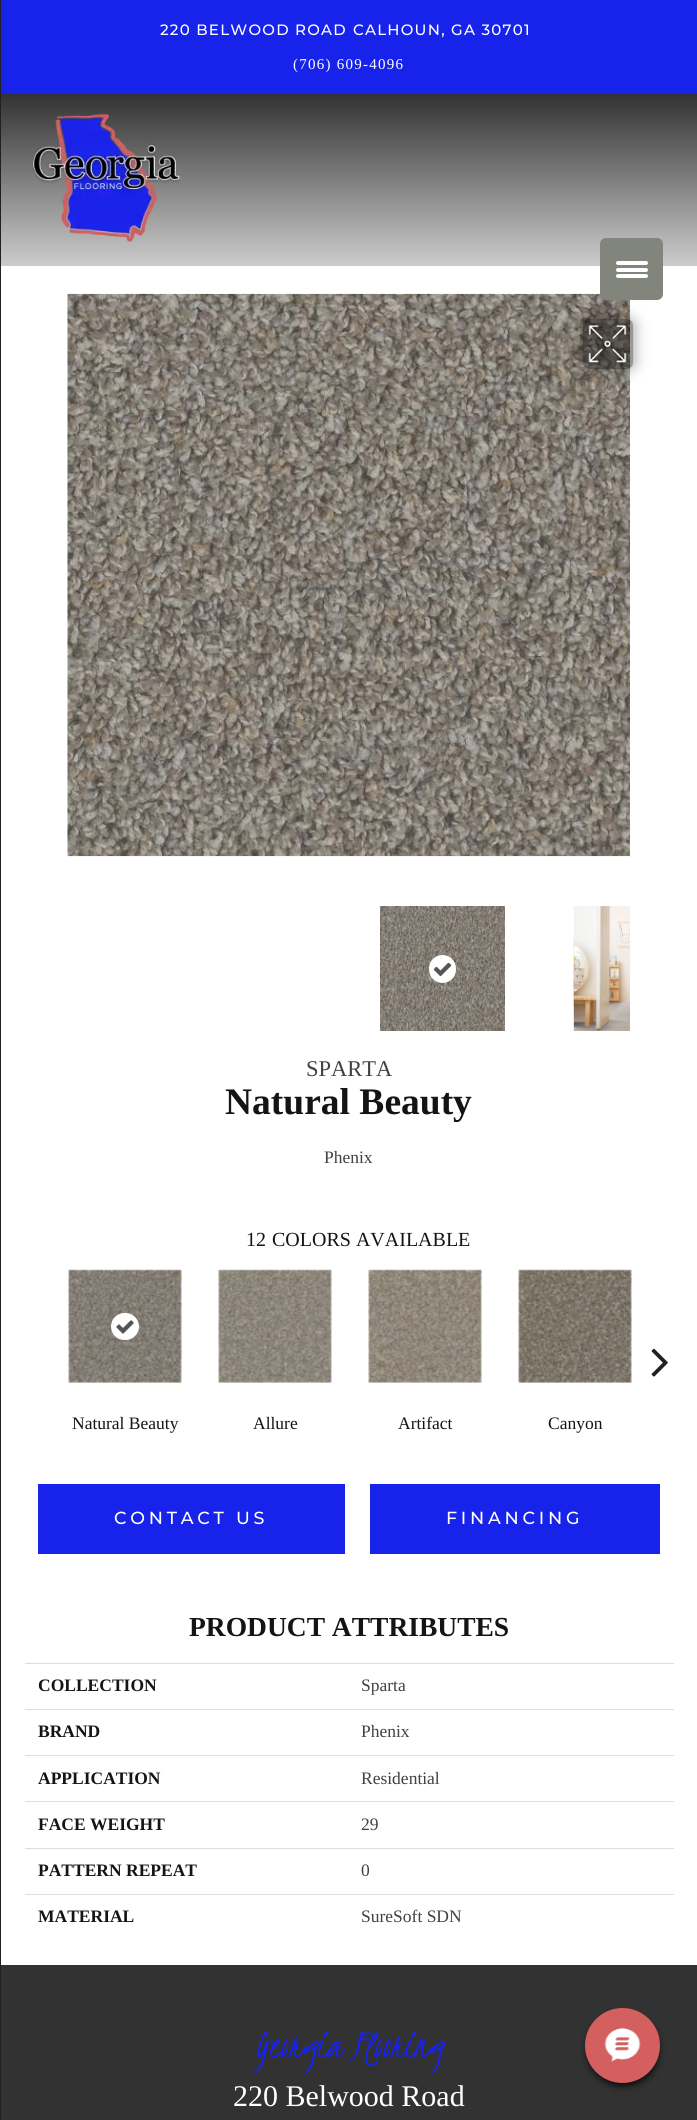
#include <cairo.h>
#include <math.h>
#include <stddef.h>


static void set_color(cairo_t *cr, unsigned color) {
    cairo_set_source_rgb(cr, (color >> 16) / 255.0, (color >> 8 & 255) / 255.0, (color & 255) / 255.0);
}

static void draw_text(cairo_t *cr, double x, double y, const char *s, const char *family, double size, int italic, int bold, unsigned color) {
    cairo_select_font_face(cr, family, italic ? CAIRO_FONT_SLANT_ITALIC : CAIRO_FONT_SLANT_NORMAL,
        bold ? CAIRO_FONT_WEIGHT_BOLD : CAIRO_FONT_WEIGHT_NORMAL);
    cairo_set_font_size(cr, size);
    set_color(cr, color);
    cairo_move_to(cr, x, y);
    cairo_show_text(cr, s);
}

static void draw_spaced(cairo_t *cr, double x, double y, const char *s, double letter, double word) {
    cairo_move_to(cr, x, y);
    while (*s) {
        char ch[5] = {0};
        int n = 0;
        do ch[n++] = *s++; while ((*s & 0xC0) == 0x80);
        cairo_show_text(cr, ch);
        cairo_rel_move_to(cr, letter + word * (*ch == ' '), 0);
    }
}

static void fill_rect(cairo_t *cr, double x, double y, double w, double h, unsigned color) {
    set_color(cr, color);
    cairo_rectangle(cr, x, y, w, h);
    cairo_fill(cr);
}

static void rounded_rect(cairo_t *cr, double x, double y, double w, double h, double r) {
    cairo_new_sub_path(cr);
    cairo_arc(cr, x + w - r, y + h - r, r, 0, M_PI / 2);
    cairo_arc(cr, x + r, y + h - r, r, M_PI / 2, M_PI);
    cairo_arc(cr, x + r, y + r, r, M_PI, 1.5 * M_PI);
    cairo_arc(cr, x + w - r, y + r, r, 1.5 * M_PI, 2 * M_PI);
    cairo_close_path(cr);
}

static void draw_shadow(cairo_t *cr, double x, double y, double w, double h, double r, double blur, double alpha) {
    cairo_push_group_with_content(cr, CAIRO_CONTENT_ALPHA);
    cairo_set_operator(cr, CAIRO_OPERATOR_SOURCE);
    for (int i = 15; i >= -15 && fmin(w, h) + blur * i / 3 > 0; i -= 2) {
        double e = blur * i / 6;
        cairo_set_source_rgba(cr, 0, 0, 0, alpha * erfc((i - 1) / 8.5) / 2);
        rounded_rect(cr, x - e, y - e, w + 2 * e, h + 2 * e, fmax(0, fmin(r + e + blur * .6, fmin(w, h) / 2 + e)));
        cairo_fill(cr);
    }
    cairo_pattern_t *soft = cairo_pop_group(cr);
    cairo_mask(cr, soft);
    cairo_pattern_destroy(soft);
}

static void draw_image(cairo_t *cr, const char *path, double x, double y, double w, double h) {
    cairo_surface_t *image = cairo_image_surface_create_from_png(path);
    cairo_save(cr);
    cairo_set_source_surface(cr, image, x, y);
    cairo_rectangle(cr, x, y, w, h);
    cairo_fill(cr);
    cairo_restore(cr);
    cairo_surface_destroy(image);
}

int main(void) {
    cairo_surface_t *surface = cairo_image_surface_create(CAIRO_FORMAT_RGB24, 697, 2120);
    cairo_t *cr = cairo_create(surface);
    cairo_font_options_t *options = cairo_font_options_create();
    cairo_font_options_set_hint_metrics(options, CAIRO_HINT_METRICS_OFF);
    cairo_font_options_set_hint_style(options, CAIRO_HINT_STYLE_NONE);
    cairo_set_font_options(cr, options);
    cairo_set_miter_limit(cr, 4);
    cairo_pattern_t *gradient;
    set_color(cr, 0xFFFFFF);
    cairo_paint(cr);
    fill_rect(cr, 0, 0, 1, 2120, 0x212121);
    fill_rect(cr, 1, 0, 696, 94, 0x1723EB);
    cairo_select_font_face(cr, "Montserrat Medium", CAIRO_FONT_SLANT_NORMAL, CAIRO_FONT_WEIGHT_NORMAL);
    cairo_set_font_size(cr, 15);
    set_color(cr, 0xFFFFFF);
    draw_spaced(cr, 160, 35, "220 BELWOOD ROAD", 1.25, 0);
    draw_spaced(cr, 353, 35, "CALHOUN, GA 30701", 1.25, 0);
    cairo_select_font_face(cr, "Liberation Serif", CAIRO_FONT_SLANT_NORMAL, CAIRO_FONT_WEIGHT_NORMAL);
    draw_spaced(cr, 293, 69, "(706) 609-4096", 1.25, 0);
    gradient = cairo_pattern_create_linear(349, 94, 349, 266);
    cairo_pattern_add_color_stop_rgba(gradient, 0, 0.196, 0.196, 0.196, 1);
    cairo_pattern_add_color_stop_rgba(gradient, 1, 0.8, 0.8, 0.8, 1);
    cairo_set_source(cr, gradient);
    cairo_pattern_destroy(gradient);
    cairo_rectangle(cr, 1, 94, 696, 172);
    cairo_fill(cr);
    draw_image(cr, "assets/img1.png", 32, 113, 148, 129);
    draw_image(cr, "assets/img2.png", 67, 293, 563, 564);
    cairo_save(cr);
    cairo_set_fill_rule(cr, CAIRO_FILL_RULE_EVEN_ODD);
    cairo_new_path(cr);
    cairo_move_to(cr, 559, 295);
    cairo_line_to(cr, 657, 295);
    cairo_line_to(cr, 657, 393);
    cairo_line_to(cr, 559, 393);
    cairo_close_path(cr);
    cairo_move_to(cr, 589, 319);
    cairo_line_to(cr, 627, 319);
    cairo_curve_to(cr, 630.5, 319, 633, 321.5, 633, 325);
    cairo_line_to(cr, 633, 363);
    cairo_curve_to(cr, 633, 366.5, 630.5, 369, 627, 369);
    cairo_line_to(cr, 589, 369);
    cairo_curve_to(cr, 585.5, 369, 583, 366.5, 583, 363);
    cairo_line_to(cr, 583, 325);
    cairo_curve_to(cr, 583, 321.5, 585.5, 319, 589, 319);
    cairo_close_path(cr);
    cairo_clip(cr);
    set_color(cr, 0x000000);
    draw_shadow(cr, 583, 319, 50, 50, 6, 7.5, 0.41);
    cairo_restore(cr);
    cairo_set_source_rgba(cr, 0, 0, 0, 0.4);
    rounded_rect(cr, 583, 319, 50, 50, 6);
    cairo_fill(cr);
    draw_image(cr, "assets/img3.png", 585, 321, 46, 45);
    draw_image(cr, "assets/img4.png", 380, 906, 125, 125);
    set_color(cr, 0xFFFFFF);
    rounded_rect(cr, 429, 955, 27, 28, 13.5);
    cairo_fill(cr);
    draw_image(cr, "assets/img5.png", 433, 962, 19, 15);
    draw_image(cr, "assets/img6.png", 573, 906, 1, 125);
    draw_image(cr, "assets/img7.png", 573, 906, 57, 125);
    draw_text(cr, 306, 1076, "SPARTA", "Liberation Serif", 22.5, 0, 0, 0x414042);
    draw_text(cr, 225, 1114, "Natural Beauty", "Liberation Serif", 37.5, 0, 1, 0x141414);
    draw_text(cr, 324, 1163, "Phenix", "Liberation Serif", 17.5, 0, 0, 0x414042);
    draw_text(cr, 246, 1246, "12", "Liberation Serif", 20, 0, 0, 0x141414);
    draw_text(cr, 272, 1246, "COLORS AVAILABLE", "Liberation Serif", 20, 0, 0, 0x141414);
    draw_image(cr, "assets/img8.png", 651, 1348, 17, 29);
    draw_image(cr, "assets/img9.png", 68, 1269, 114, 114);
    set_color(cr, 0xFFFFFF);
    rounded_rect(cr, 111, 1313, 28, 27, 13.5);
    cairo_fill(cr);
    draw_image(cr, "assets/img10.png", 116, 1320, 18, 14);
    draw_text(cr, 72, 1429, "Natural Beauty", "Liberation Serif", 17.5, 0, 0, 0x141414);
    draw_image(cr, "assets/img11.png", 218, 1269, 114, 114);
    draw_text(cr, 253, 1429, "Allure", "Liberation Serif", 17.5, 0, 0, 0x141414);
    draw_image(cr, "assets/img12.png", 368, 1269, 114, 114);
    draw_text(cr, 398, 1429, "Artifact", "Liberation Serif", 17.5, 0, 0, 0x141414);
    draw_image(cr, "assets/img13.png", 518, 1269, 114, 114);
    draw_text(cr, 548, 1429, "Canyon", "Liberation Serif", 17.5, 0, 0, 0x141414);
    fill_rect(cr, 38, 1484, 307, 70, 0x1723EB);
    cairo_select_font_face(cr, "Montserrat Medium", CAIRO_FONT_SLANT_NORMAL, CAIRO_FONT_WEIGHT_NORMAL);
    set_color(cr, 0xFFFFFF);
    draw_spaced(cr, 114, 1524, "CONTACT US", 3.75, 0);
    fill_rect(cr, 370, 1484, 290, 70, 0x1723EB);
    set_color(cr, 0xFFFFFF);
    draw_spaced(cr, 446, 1524, "FINANCING", 3.75, 0);
    draw_text(cr, 189, 1636, "PRODUCT ATTRIBUTES", "Liberation Serif", 27.5, 0, 1, 0x141414);
    draw_text(cr, 38, 1691, "COLLECTION", "Liberation Serif", 17.5, 0, 1, 0x141414);
    fill_rect(cr, 25, 1663, 649, 1, 0xDDDDDD);
    draw_text(cr, 361, 1691, "Sparta", "Liberation Serif", 17.5, 0, 0, 0x414042);
    draw_text(cr, 38, 1737, "BRAND", "Liberation Serif", 17.5, 0, 1, 0x141414);
    fill_rect(cr, 25, 1709, 649, 1, 0xDDDDDD);
    draw_text(cr, 361, 1737, "Phenix", "Liberation Serif", 17.5, 0, 0, 0x414042);
    draw_text(cr, 38, 1784, "APPLICATION", "Liberation Serif", 17.5, 0, 1, 0x141414);
    fill_rect(cr, 25, 1755, 649, 1, 0xDDDDDD);
    draw_text(cr, 361, 1784, "Residential", "Liberation Serif", 17.5, 0, 0, 0x414042);
    draw_text(cr, 38, 1830, "FACE WEIGHT", "Liberation Serif", 17.5, 0, 1, 0x141414);
    fill_rect(cr, 25, 1801, 649, 1, 0xDDDDDD);
    draw_text(cr, 361, 1830, "29", "Liberation Serif", 17.5, 0, 0, 0x414042);
    draw_text(cr, 38, 1876, "PATTERN REPEAT", "Liberation Serif", 17.5, 0, 1, 0x141414);
    fill_rect(cr, 25, 1848, 649, 1, 0xDDDDDD);
    draw_text(cr, 361, 1876, "0", "Liberation Serif", 17.5, 0, 0, 0x414042);
    draw_text(cr, 38, 1922, "MATERIAL", "Liberation Serif", 17.5, 0, 1, 0x141414);
    fill_rect(cr, 25, 1894, 649, 1, 0xDDDDDD);
    draw_text(cr, 361, 1922, "SureSoft SDN", "Liberation Serif", 17.5, 0, 0, 0x414042);
    fill_rect(cr, 1, 1965, 696, 155, 0x323232);
    draw_text(cr, 255, 2057, "Georgia Flooring", "Kristi", 43.75, 0, 0, 0x1723EB);
    draw_text(cr, 233, 2106, "220 Belwood Road", "Liberation Serif", 30, 0, 0, 0xFFFFFF);
    set_color(cr, 0x82857B);
    rounded_rect(cr, 600, 238, 63, 62, 6);
    cairo_fill(cr);
    set_color(cr, 0xFFFFFF);
    rounded_rect(cr, 616, 268, 32, 4, 2);
    cairo_fill(cr);
    rounded_rect(cr, 616, 261, 32, 4, 2);
    cairo_fill(cr);
    rounded_rect(cr, 616, 274, 32, 4, 2);
    cairo_fill(cr);
    set_color(cr, 0x000000);
    draw_shadow(cr, 588, 2015, 70, 70, 35, 4, 1);
    set_color(cr, 0xD35F5F);
    cairo_arc(cr, 622.5, 2045.5, 37.5, 0, 2 * M_PI);
    cairo_fill(cr);
    draw_image(cr, "assets/img14.png", 604, 2028, 37, 34);
    cairo_surface_write_to_png(surface, "output.png");
    cairo_font_options_destroy(options);
    cairo_destroy(cr);
    cairo_surface_destroy(surface);
    return 0;
}
